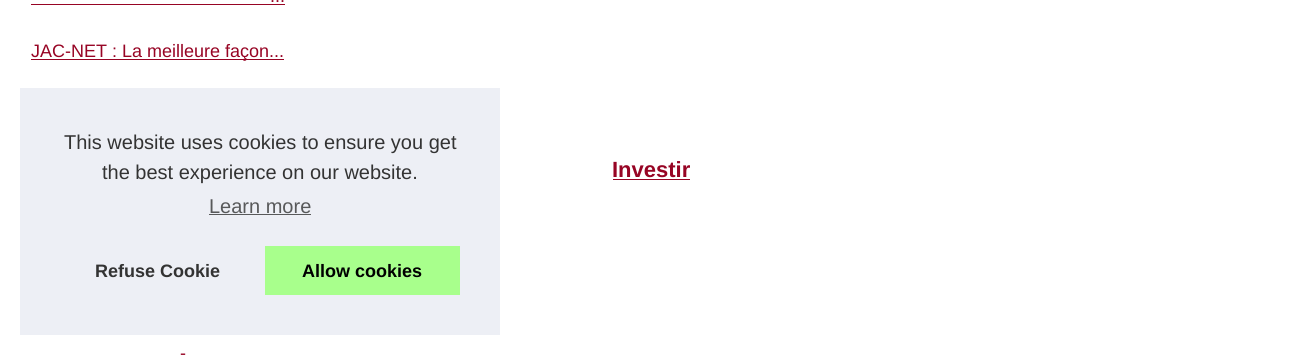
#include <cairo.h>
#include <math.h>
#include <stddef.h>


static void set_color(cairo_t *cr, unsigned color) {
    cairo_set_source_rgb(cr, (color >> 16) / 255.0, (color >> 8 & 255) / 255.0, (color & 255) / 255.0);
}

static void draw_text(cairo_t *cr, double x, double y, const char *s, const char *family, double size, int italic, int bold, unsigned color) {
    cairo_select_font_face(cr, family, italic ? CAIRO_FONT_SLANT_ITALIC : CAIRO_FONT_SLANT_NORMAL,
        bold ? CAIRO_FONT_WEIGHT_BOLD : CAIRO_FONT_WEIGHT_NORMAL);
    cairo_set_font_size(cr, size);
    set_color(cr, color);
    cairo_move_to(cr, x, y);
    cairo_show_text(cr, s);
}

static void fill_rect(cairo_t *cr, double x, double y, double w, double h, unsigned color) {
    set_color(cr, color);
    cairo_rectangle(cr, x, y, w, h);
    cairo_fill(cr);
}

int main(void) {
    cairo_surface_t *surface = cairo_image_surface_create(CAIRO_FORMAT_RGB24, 1302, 355);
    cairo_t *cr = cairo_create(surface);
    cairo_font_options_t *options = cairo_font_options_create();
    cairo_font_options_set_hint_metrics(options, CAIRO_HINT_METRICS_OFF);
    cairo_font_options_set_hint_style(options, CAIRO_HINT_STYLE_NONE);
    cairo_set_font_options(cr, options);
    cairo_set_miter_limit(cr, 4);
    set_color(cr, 0xFFFFFF);
    cairo_paint(cr);
    draw_text(cr, 270, 2, "...", "Liberation Sans", 18, 0, 0, 0x970424);
    fill_rect(cr, 31, 4, 254, 1, 0x970424);
    fill_rect(cr, 31, 59, 253, 1, 0x970424);
    draw_text(cr, 31, 57, "JAC-NET : La meilleure façon...", "Liberation Sans", 18, 0, 0, 0x970424);
    draw_text(cr, 612, 177, "Investir", "Liberation Sans", 22, 0, 1, 0x970424);
    fill_rect(cr, 613, 179, 77, 1, 0x970424);
    draw_text(cr, 180, 359, "-", "Liberation Sans", 18, 0, 0, 0x970424);
    fill_rect(cr, 20, 88, 480, 247, 0xEDEFF5);
    draw_text(cr, 64, 149, "This website uses cookies to ensure you get", "Liberation Sans", 20, 0, 0, 0x333333);
    draw_text(cr, 102, 179, "the best experience on our website.", "Liberation Sans", 20, 0, 0, 0x333333);
    draw_text(cr, 209, 213, "Learn more", "Liberation Sans", 20, 0, 0, 0x58595A);
    fill_rect(cr, 209, 214, 102, 1, 0x58595A);
    draw_text(cr, 95, 277, "Refuse Cookie", "Liberation Sans", 18, 0, 1, 0x333333);
    fill_rect(cr, 265, 246, 195, 49, 0xA8FF8C);
    draw_text(cr, 302, 277, "Allow cookies", "Liberation Sans", 18, 0, 1, 0x000000);
    cairo_surface_write_to_png(surface, "output.png");
    cairo_font_options_destroy(options);
    cairo_destroy(cr);
    cairo_surface_destroy(surface);
    return 0;
}
